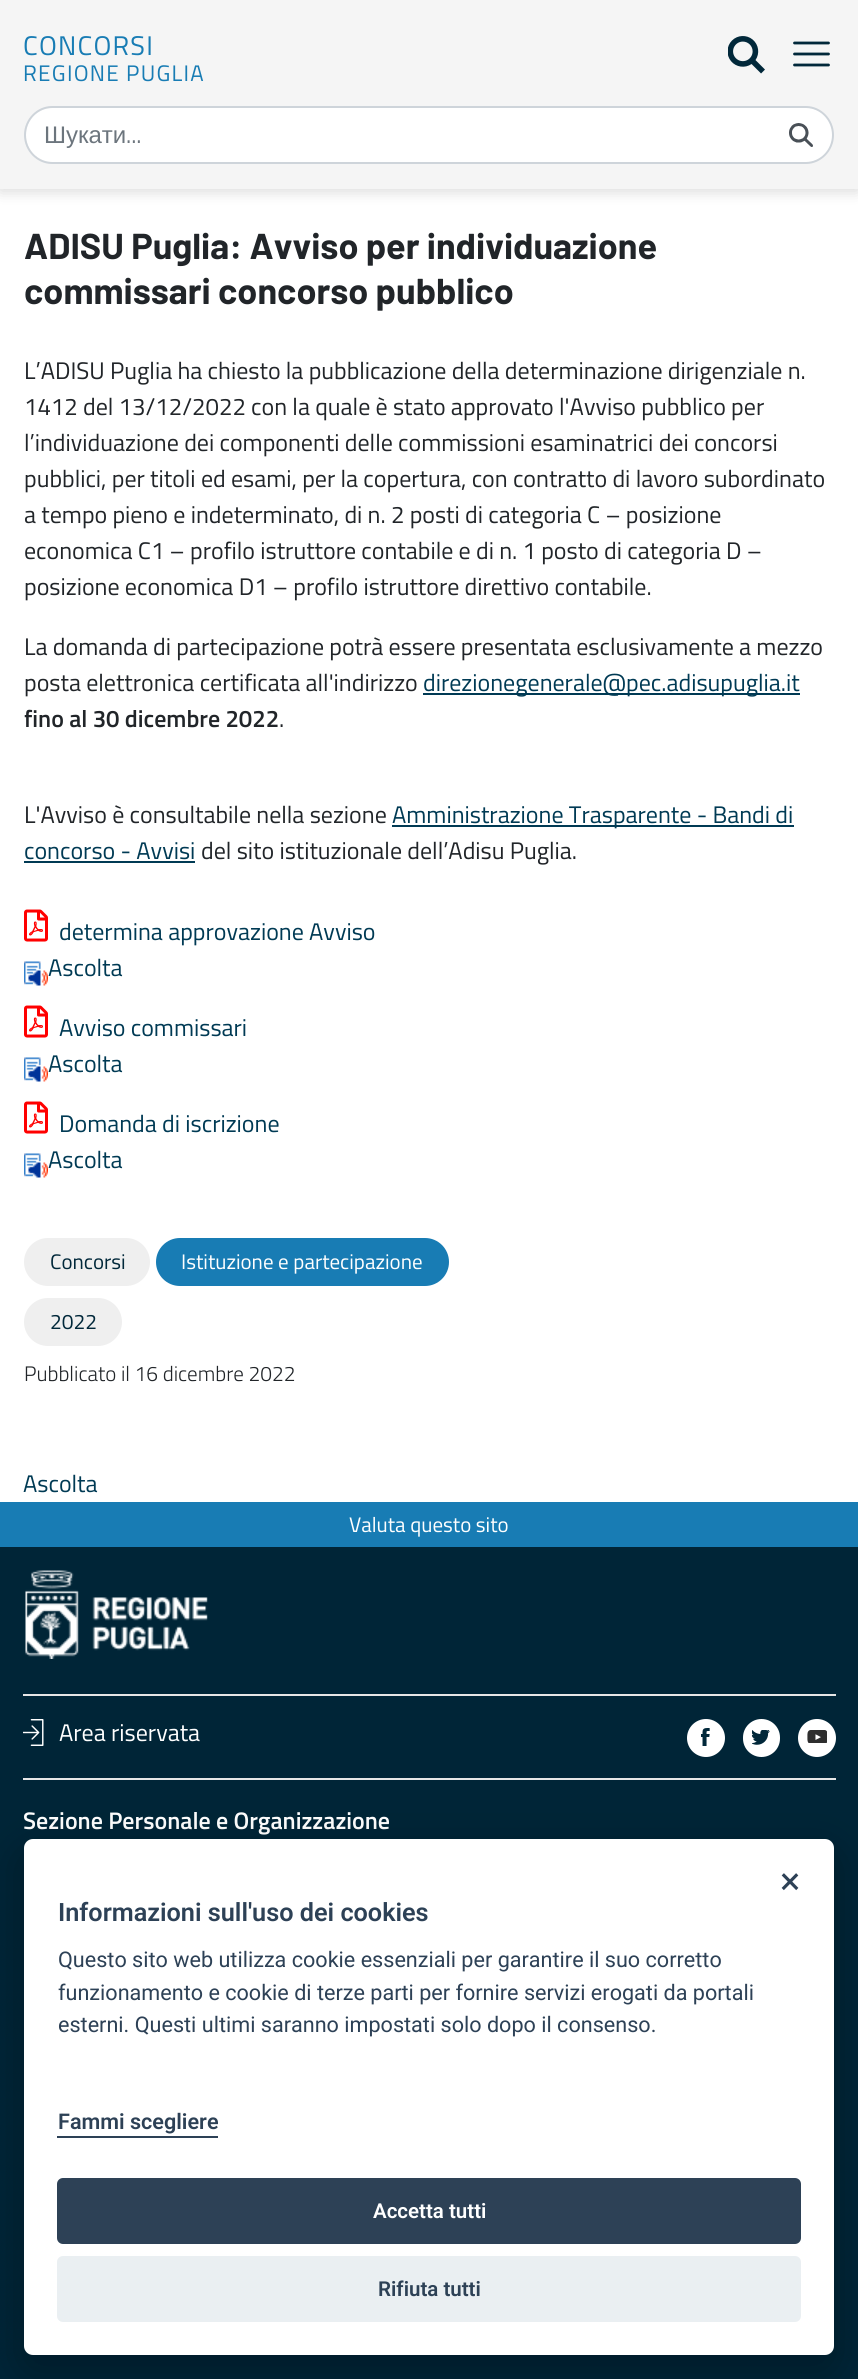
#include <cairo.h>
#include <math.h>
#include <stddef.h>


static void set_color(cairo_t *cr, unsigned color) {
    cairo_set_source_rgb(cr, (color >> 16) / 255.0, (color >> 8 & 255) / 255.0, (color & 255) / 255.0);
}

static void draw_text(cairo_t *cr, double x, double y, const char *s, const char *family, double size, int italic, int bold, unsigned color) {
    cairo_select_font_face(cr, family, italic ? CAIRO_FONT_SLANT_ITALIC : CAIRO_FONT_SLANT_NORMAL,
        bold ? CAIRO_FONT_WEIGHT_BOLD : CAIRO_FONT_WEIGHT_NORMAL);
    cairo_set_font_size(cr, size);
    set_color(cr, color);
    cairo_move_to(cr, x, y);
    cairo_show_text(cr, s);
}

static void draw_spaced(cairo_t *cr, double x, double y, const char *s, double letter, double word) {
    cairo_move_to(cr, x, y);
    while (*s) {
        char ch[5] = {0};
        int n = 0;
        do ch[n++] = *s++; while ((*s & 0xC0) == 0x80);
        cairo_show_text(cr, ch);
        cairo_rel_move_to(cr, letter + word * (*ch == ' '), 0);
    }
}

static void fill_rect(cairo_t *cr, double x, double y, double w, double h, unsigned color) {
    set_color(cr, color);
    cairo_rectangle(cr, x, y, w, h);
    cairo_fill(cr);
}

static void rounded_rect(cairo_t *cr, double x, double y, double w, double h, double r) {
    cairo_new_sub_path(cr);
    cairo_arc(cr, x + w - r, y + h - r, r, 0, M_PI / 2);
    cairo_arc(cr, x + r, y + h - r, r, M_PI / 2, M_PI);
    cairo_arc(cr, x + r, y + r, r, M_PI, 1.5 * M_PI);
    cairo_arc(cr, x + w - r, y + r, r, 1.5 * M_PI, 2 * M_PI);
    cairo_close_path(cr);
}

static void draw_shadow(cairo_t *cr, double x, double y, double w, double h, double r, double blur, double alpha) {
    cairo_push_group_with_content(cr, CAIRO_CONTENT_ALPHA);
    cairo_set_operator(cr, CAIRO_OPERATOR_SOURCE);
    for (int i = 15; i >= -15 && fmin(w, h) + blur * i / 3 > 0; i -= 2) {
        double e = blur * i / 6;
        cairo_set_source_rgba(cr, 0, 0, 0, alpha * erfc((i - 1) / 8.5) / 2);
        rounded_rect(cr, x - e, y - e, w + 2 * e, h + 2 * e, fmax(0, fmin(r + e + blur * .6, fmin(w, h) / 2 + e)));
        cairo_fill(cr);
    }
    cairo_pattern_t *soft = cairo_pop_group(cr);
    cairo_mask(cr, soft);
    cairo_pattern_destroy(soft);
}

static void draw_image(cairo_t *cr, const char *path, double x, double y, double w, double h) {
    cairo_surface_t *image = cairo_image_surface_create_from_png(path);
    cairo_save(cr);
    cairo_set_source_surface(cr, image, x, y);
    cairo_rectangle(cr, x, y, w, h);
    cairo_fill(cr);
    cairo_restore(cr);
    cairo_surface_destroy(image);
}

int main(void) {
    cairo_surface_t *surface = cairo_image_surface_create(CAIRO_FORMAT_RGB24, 858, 2379);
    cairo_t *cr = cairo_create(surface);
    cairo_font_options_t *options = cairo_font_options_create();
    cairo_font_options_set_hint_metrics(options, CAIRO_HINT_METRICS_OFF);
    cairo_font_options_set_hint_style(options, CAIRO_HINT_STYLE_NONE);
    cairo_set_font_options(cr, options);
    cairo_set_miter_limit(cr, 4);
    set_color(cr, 0xFFFFFF);
    cairo_paint(cr);
    set_color(cr, 0x000000);
    draw_shadow(cr, 0, 2, 858, 189, 0, 7.5, 0.16);
    fill_rect(cr, 0, 0, 858, 189, 0xF5F5F5);
    cairo_select_font_face(cr, "Titillium Web", CAIRO_FONT_SLANT_NORMAL, CAIRO_FONT_WEIGHT_NORMAL);
    cairo_set_font_size(cr, 27);
    set_color(cr, 0x187CB4);
    draw_spaced(cr, 23, 55, "CONCORSI", 1.25, 0);
    cairo_set_font_size(cr, 22.5);
    draw_spaced(cr, 23, 81, "REGIONE PUGLIA", 1.25, 0);
    draw_image(cr, "assets/img1.png", 728, 36, 37, 38);
    cairo_new_path(cr);
    cairo_move_to(cr, 794.5, 43);
    cairo_line_to(cr, 828.5, 43);
    cairo_move_to(cr, 794.5, 54);
    cairo_line_to(cr, 828.5, 54);
    cairo_move_to(cr, 794.5, 65);
    cairo_line_to(cr, 828.5, 65);
    set_color(cr, 0x01283A);
    cairo_set_line_width(cr, 2.8);
    cairo_set_line_cap(cr, CAIRO_LINE_CAP_ROUND);
    cairo_stroke(cr);
    set_color(cr, 0xFFFFFF);
    cairo_new_path(cr);
    cairo_move_to(cr, 53, 108);
    cairo_line_to(cr, 770, 108);
    cairo_line_to(cr, 770, 162);
    cairo_line_to(cr, 53, 162);
    cairo_curve_to(cr, 38, 162, 26, 150, 26, 135);
    cairo_curve_to(cr, 26, 120, 38, 108, 53, 108);
    cairo_close_path(cr);
    cairo_fill(cr);
    set_color(cr, 0xCED4DA);
    cairo_set_fill_rule(cr, CAIRO_FILL_RULE_EVEN_ODD);
    cairo_new_path(cr);
    cairo_move_to(cr, 52, 106);
    cairo_line_to(cr, 770, 106);
    cairo_line_to(cr, 770, 164);
    cairo_line_to(cr, 52, 164);
    cairo_curve_to(cr, 37, 164, 24, 151, 24, 135);
    cairo_curve_to(cr, 24, 119, 37, 106, 52, 106);
    cairo_close_path(cr);
    cairo_move_to(cr, 52, 108);
    cairo_line_to(cr, 770, 108);
    cairo_line_to(cr, 770, 162);
    cairo_line_to(cr, 52, 162);
    cairo_curve_to(cr, 38, 162, 26, 150, 26, 135);
    cairo_curve_to(cr, 26, 120, 38, 108, 52, 108);
    cairo_close_path(cr);
    cairo_fill(cr);
    draw_text(cr, 44, 143, "Шукати", "Liberation Sans", 24, 0, 0, 0x6C757D);
    draw_text(cr, 126, 143, "...", "Titillium Web", 24, 0, 0, 0x6C757D);
    set_color(cr, 0xFFFFFF);
    cairo_new_path(cr);
    cairo_move_to(cr, 770, 108);
    cairo_line_to(cr, 806, 108);
    cairo_curve_to(cr, 821, 108, 833, 120, 833, 135);
    cairo_curve_to(cr, 833, 150, 821, 162, 806, 162);
    cairo_line_to(cr, 770, 162);
    cairo_close_path(cr);
    cairo_fill(cr);
    set_color(cr, 0xCED4DA);
    cairo_new_path(cr);
    cairo_move_to(cr, 770, 106);
    cairo_line_to(cr, 806, 106);
    cairo_curve_to(cr, 821, 106, 834, 119, 834, 135);
    cairo_curve_to(cr, 834, 151, 821, 164, 806, 164);
    cairo_line_to(cr, 770, 164);
    cairo_close_path(cr);
    cairo_move_to(cr, 770, 108);
    cairo_line_to(cr, 806, 108);
    cairo_curve_to(cr, 820, 108, 832, 120, 832, 135);
    cairo_curve_to(cr, 832, 150, 820, 162, 806, 162);
    cairo_line_to(cr, 770, 162);
    cairo_close_path(cr);
    cairo_fill(cr);
    draw_image(cr, "assets/img2.png", 789, 123, 24, 24);
    draw_text(cr, 24, 259, "ADISU Puglia: Avviso per individuazione", "Barlow", 36, 0, 1, 0x212529);
    draw_text(cr, 24, 304, "commissari concorso pubblico", "Barlow", 36, 0, 1, 0x212529);
    draw_text(cr, 24, 379, "L’ADISU Puglia ha chiesto la pubblicazione della determinazione dirigenziale n.", "Titillium Web", 24, 0, 0, 0x212529);
    draw_text(cr, 24, 415, "1412 del 13/12/2022 con la quale è stato approvato l'Avviso pubblico per", "Titillium Web", 24, 0, 0, 0x212529);
    draw_text(cr, 24, 451, "l’individuazione dei componenti delle commissioni esaminatrici dei concorsi", "Titillium Web", 24, 0, 0, 0x212529);
    draw_text(cr, 24, 487, "pubblici, per titoli ed esami, per la copertura, con contratto di lavoro subordinato", "Titillium Web", 24, 0, 0, 0x212529);
    draw_text(cr, 24, 523, "a tempo pieno e indeterminato, di n. 2 posti di categoria C – posizione", "Titillium Web", 24, 0, 0, 0x212529);
    draw_text(cr, 24, 559, "economica C1 – profilo istruttore contabile e di n. 1 posto di categoria D –", "Titillium Web", 24, 0, 0, 0x212529);
    draw_text(cr, 24, 595, "posizione economica D1 – profilo istruttore direttivo contabile.", "Titillium Web", 24, 0, 0, 0x212529);
    draw_text(cr, 24, 655, "La domanda di partecipazione potrà essere presentata esclusivamente a mezzo", "Titillium Web", 24, 0, 0, 0x212529);
    draw_text(cr, 24, 691, "posta elettronica certificata all'indirizzo", "Titillium Web", 24, 0, 0, 0x212529);
    fill_rect(cr, 423, 693, 377, 2, 0x003A54);
    draw_text(cr, 423, 691, "direzionegenerale@pec.adisupuglia.it", "Titillium Web", 24, 0, 0, 0x003A54);
    draw_text(cr, 24, 727, "fino al 30 dicembre 2022", "Titillium Web SemiBold", 24, 0, 0, 0x212529);
    draw_text(cr, 279, 727, ".", "Titillium Web", 24, 0, 0, 0x212529);
    draw_text(cr, 24, 823, "L'Avviso è consultabile nella sezione", "Titillium Web", 24, 0, 0, 0x212529);
    fill_rect(cr, 392, 825, 402, 2, 0x003A54);
    draw_text(cr, 392, 823, "Amministrazione Trasparente - Bandi di", "Titillium Web", 24, 0, 0, 0x003A54);
    draw_text(cr, 24, 859, "concorso - Avvisi", "Titillium Web", 24, 0, 0, 0x003A54);
    fill_rect(cr, 24, 861, 171, 2, 0x003A54);
    draw_text(cr, 201, 859, "del sito istituzionale dell’Adisu Puglia.", "Titillium Web", 24, 0, 0, 0x212529);
    draw_image(cr, "assets/img3.png", 24, 909, 24, 33);
    draw_text(cr, 59, 940, "determina approvazione Avviso", "Titillium Web", 24, 0, 0, 0x003A54);
    draw_image(cr, "assets/img4.png", 24, 961, 24, 25);
    draw_text(cr, 48, 976, "Ascolta", "Titillium Web", 24, 0, 0, 0x003A54);
    draw_image(cr, "assets/img3.png", 24, 1005, 24, 33);
    draw_text(cr, 59, 1036, "Avviso commissari", "Titillium Web", 24, 0, 0, 0x003A54);
    draw_image(cr, "assets/img4.png", 24, 1057, 24, 25);
    draw_text(cr, 48, 1072, "Ascolta", "Titillium Web", 24, 0, 0, 0x003A54);
    draw_image(cr, "assets/img3.png", 24, 1101, 24, 33);
    draw_text(cr, 59, 1132, "Domanda di iscrizione", "Titillium Web", 24, 0, 0, 0x003A54);
    draw_image(cr, "assets/img4.png", 24, 1153, 24, 25);
    draw_text(cr, 48, 1168, "Ascolta", "Titillium Web", 24, 0, 0, 0x003A54);
    set_color(cr, 0xEFEFEF);
    rounded_rect(cr, 24, 1238, 126, 48, 24);
    cairo_fill(cr);
    draw_text(cr, 50, 1269, "Concorsi", "Titillium Web", 21, 0, 0, 0x01283A);
    set_color(cr, 0x187CB4);
    rounded_rect(cr, 156, 1238, 293, 48, 24);
    cairo_fill(cr);
    draw_text(cr, 181, 1269, "Istituzione e partecipazione", "Titillium Web", 21, 0, 0, 0xFFFFFF);
    set_color(cr, 0xEFEFEF);
    rounded_rect(cr, 24, 1298, 98, 48, 24);
    cairo_fill(cr);
    draw_text(cr, 50, 1329, "2022", "Titillium Web", 21, 0, 0, 0x01283A);
    draw_text(cr, 24, 1381, "Pubblicato il 16 dicembre 2022", "Titillium Web Light", 21, 0, 0, 0x212529);
    draw_text(cr, 23, 1492, "Ascolta", "Titillium Web", 24, 0, 0, 0x003A54);
    fill_rect(cr, 0, 1502, 858, 45, 0x187CB4);
    draw_text(cr, 349, 1532, "Valuta questo sito", "Titillium Web", 21, 0, 0, 0xFFFFFF);
    fill_rect(cr, 0, 1547, 858, 832, 0x002537);
    draw_image(cr, "assets/img5.png", 25, 1570, 183, 89);
    fill_rect(cr, 23, 1694, 813, 2, 0xE6E6E6);
    draw_image(cr, "assets/img6.png", 23, 1719, 21, 27);
    draw_text(cr, 59, 1741, "Area riservata", "Titillium Web", 24, 0, 0, 0xFFFFFF);
    cairo_new_path(cr);
    cairo_arc(cr, 706, 1738, 19, 0, 2 * M_PI);
    cairo_fill(cr);
    draw_image(cr, "assets/img7.png", 701, 1728, 9, 18);
    rounded_rect(cr, 743, 1719, 37, 38, 18.5);
    cairo_fill(cr);
    draw_image(cr, "assets/img8.png", 752, 1730, 18, 15);
    cairo_arc(cr, 817, 1738, 19, 0, 2 * M_PI);
    cairo_fill(cr);
    draw_image(cr, "assets/img9.png", 807, 1730, 20, 13);
    fill_rect(cr, 23, 1778, 813, 2, 0xE6E6E6);
    draw_text(cr, 23, 1829, "Sezione Personale e Organizzazione", "Titillium Web SemiBold", 24, 0, 0, 0xFFFFFF);
    set_color(cr, 0x020203);
    draw_shadow(cr, 24, 1854, 810, 516, 9, 22.5, 0.28);
    set_color(cr, 0xFFFFFF);
    rounded_rect(cr, 24, 1839, 810, 516, 9);
    cairo_fill(cr);
    draw_text(cr, 780, 1894, "×", "Roboto", 38, 0, 0, 0x2D4156);
    draw_text(cr, 58, 1921, "Informazioni sull'uso dei cookies", "Roboto SemiBold", 25.25, 0, 0, 0x2D4156);
    draw_text(cr, 58, 1967, "Questo sito web utilizza cookie essenziali per garantire il suo corretto", "Roboto", 21.6, 0, 0, 0x2D4156);
    draw_text(cr, 58, 2000, "funzionamento e cookie di terze parti per fornire servizi erogati da portali", "Roboto", 21.6, 0, 0, 0x2D4156);
    draw_text(cr, 58, 2032, "esterni. Questi ultimi saranno impostati solo dopo il consenso.", "Roboto", 21.6, 0, 0, 0x2D4156);
    draw_text(cr, 58, 2129, "Fammi scegliere", "Roboto SemiBold", 21.6, 0, 0, 0x2D4156);
    fill_rect(cr, 57, 2136, 161, 2, 0x2D4156);
    rounded_rect(cr, 57, 2178, 744, 66, 6);
    cairo_fill(cr);
    draw_text(cr, 373, 2218, "Accetta tutti", "Roboto SemiBold", 20.5, 0, 0, 0xFFFFFF);
    set_color(cr, 0xEAEFF2);
    rounded_rect(cr, 57, 2256, 744, 66, 6);
    cairo_fill(cr);
    draw_text(cr, 378, 2296, "Rifiuta tutti", "Roboto SemiBold", 20.5, 0, 0, 0x2D4156);
    cairo_surface_write_to_png(surface, "output.png");
    cairo_font_options_destroy(options);
    cairo_destroy(cr);
    cairo_surface_destroy(surface);
    return 0;
}
